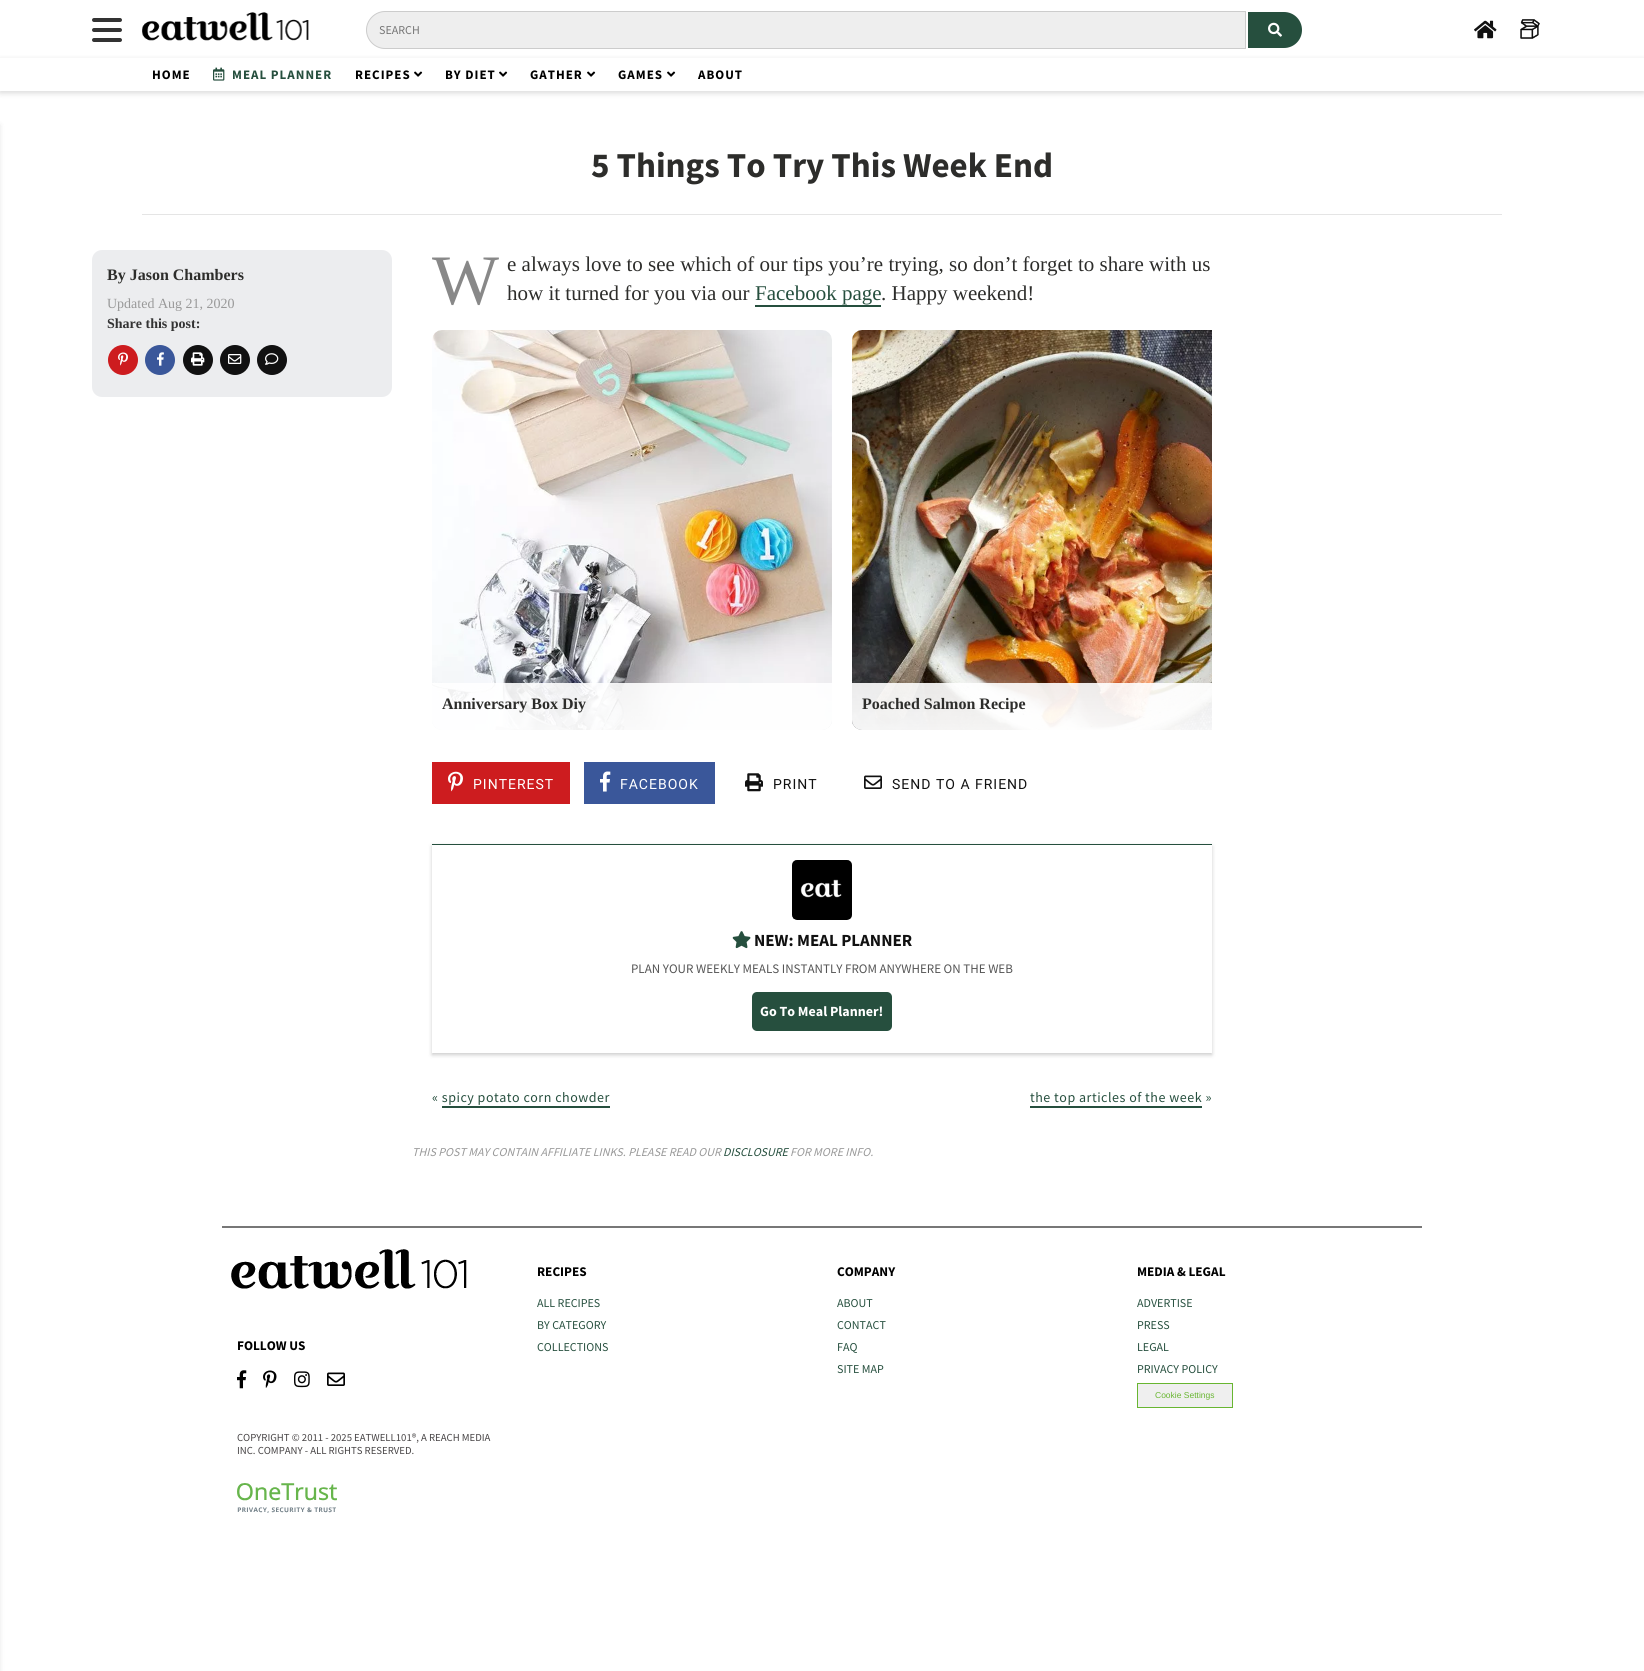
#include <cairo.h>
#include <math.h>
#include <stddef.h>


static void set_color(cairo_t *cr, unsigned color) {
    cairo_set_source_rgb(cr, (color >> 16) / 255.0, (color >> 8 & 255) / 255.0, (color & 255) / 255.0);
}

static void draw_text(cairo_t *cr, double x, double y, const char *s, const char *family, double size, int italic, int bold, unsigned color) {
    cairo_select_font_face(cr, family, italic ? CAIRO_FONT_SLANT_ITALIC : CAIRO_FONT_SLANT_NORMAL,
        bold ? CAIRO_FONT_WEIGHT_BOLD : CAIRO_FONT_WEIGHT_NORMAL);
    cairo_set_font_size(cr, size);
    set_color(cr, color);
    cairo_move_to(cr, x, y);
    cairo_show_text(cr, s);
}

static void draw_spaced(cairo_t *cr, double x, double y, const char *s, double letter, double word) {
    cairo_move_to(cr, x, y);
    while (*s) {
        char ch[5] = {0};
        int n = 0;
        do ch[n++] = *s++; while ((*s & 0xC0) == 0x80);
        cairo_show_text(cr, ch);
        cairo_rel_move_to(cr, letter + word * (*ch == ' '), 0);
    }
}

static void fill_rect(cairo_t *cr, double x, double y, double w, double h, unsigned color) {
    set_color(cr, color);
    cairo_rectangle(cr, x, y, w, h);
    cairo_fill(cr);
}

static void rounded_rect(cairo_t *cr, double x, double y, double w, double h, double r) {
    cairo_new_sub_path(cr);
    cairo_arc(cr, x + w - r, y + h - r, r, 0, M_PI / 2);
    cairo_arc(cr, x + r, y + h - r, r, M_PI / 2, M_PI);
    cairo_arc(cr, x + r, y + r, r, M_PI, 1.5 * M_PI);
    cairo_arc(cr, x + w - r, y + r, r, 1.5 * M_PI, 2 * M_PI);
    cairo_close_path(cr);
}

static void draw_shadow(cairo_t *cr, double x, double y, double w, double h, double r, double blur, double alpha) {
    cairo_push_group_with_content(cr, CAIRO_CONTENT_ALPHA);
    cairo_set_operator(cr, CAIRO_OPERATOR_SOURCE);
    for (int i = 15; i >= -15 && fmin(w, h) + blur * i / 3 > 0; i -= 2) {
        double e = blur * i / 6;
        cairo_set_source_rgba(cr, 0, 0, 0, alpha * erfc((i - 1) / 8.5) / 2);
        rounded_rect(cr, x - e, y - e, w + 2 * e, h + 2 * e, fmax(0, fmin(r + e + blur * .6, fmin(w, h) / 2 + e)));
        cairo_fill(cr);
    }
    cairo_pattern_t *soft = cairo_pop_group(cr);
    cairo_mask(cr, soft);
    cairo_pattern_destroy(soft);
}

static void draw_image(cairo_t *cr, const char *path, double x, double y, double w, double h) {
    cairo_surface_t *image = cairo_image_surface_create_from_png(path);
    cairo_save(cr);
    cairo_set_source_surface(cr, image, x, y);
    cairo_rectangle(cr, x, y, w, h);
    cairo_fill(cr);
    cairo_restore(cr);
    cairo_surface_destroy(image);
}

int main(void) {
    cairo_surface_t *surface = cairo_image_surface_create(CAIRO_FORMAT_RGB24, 1644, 1671);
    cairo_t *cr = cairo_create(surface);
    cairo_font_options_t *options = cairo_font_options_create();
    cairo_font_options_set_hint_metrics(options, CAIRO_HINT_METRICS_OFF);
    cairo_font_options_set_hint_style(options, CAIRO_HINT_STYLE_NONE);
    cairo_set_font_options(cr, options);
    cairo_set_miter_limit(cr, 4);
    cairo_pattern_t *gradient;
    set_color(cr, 0xFFFFFF);
    cairo_paint(cr);
    set_color(cr, 0x333333);
    rounded_rect(cr, 92, 18, 30, 4, 2);
    cairo_fill(cr);
    rounded_rect(cr, 92, 28, 30, 4, 2);
    cairo_fill(cr);
    rounded_rect(cr, 92, 38, 30, 4, 2);
    cairo_fill(cr);
    draw_image(cr, "assets/img1.png", 142, 12, 167, 29);
    set_color(cr, 0xEEEEEE);
    cairo_new_path(cr);
    cairo_move_to(cr, 385, 11.5);
    cairo_line_to(cr, 1245.5, 11.5);
    cairo_line_to(cr, 1245.5, 48.5);
    cairo_line_to(cr, 385, 48.5);
    cairo_curve_to(cr, 375, 48.5, 366.5, 40, 366.5, 30);
    cairo_curve_to(cr, 366.5, 20, 375, 11.5, 385, 11.5);
    cairo_close_path(cr);
    cairo_fill_preserve(cr);
    set_color(cr, 0xCCCCCC);
    cairo_set_line_width(cr, 1);
    cairo_stroke(cr);
    draw_text(cr, 379, 34, "SEARCH", "Source Sans Pro", 12, 0, 0, 0x757575);
    set_color(cr, 0x264F3E);
    cairo_new_path(cr);
    cairo_move_to(cr, 1248, 12);
    cairo_line_to(cr, 1284, 12);
    cairo_curve_to(cr, 1294, 12, 1302, 20, 1302, 30);
    cairo_curve_to(cr, 1302, 40, 1294, 48, 1284, 48);
    cairo_line_to(cr, 1248, 48);
    cairo_close_path(cr);
    cairo_fill(cr);
    draw_image(cr, "assets/img2.png", 1268, 22, 14, 15);
    draw_image(cr, "assets/img3.png", 1474, 20, 23, 19);
    draw_image(cr, "assets/img4.png", 1520, 19, 20, 20);
    cairo_save(cr);
    cairo_set_fill_rule(cr, CAIRO_FILL_RULE_EVEN_ODD);
    cairo_new_path(cr);
    cairo_move_to(cr, 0, 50);
    cairo_line_to(cr, 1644, 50);
    cairo_line_to(cr, 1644, 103);
    cairo_line_to(cr, 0, 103);
    cairo_close_path(cr);
    cairo_move_to(cr, 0, 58);
    cairo_line_to(cr, 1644, 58);
    cairo_line_to(cr, 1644, 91);
    cairo_line_to(cr, 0, 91);
    cairo_close_path(cr);
    cairo_clip(cr);
    set_color(cr, 0x000000);
    draw_shadow(cr, 0, 60, 1644, 33, 0, 3, 0.15);
    cairo_restore(cr);
    cairo_select_font_face(cr, "Source Sans Pro", CAIRO_FONT_SLANT_NORMAL, CAIRO_FONT_WEIGHT_BOLD);
    cairo_set_font_size(cr, 13);
    set_color(cr, 0x000000);
    draw_spaced(cr, 152, 79, "HOME", 1, 0);
    draw_image(cr, "assets/img5.png", 213, 67, 12, 14);
    set_color(cr, 0x264F3E);
    draw_spaced(cr, 232, 79, "MEAL PLANNER", 1, 0);
    set_color(cr, 0x000000);
    draw_spaced(cr, 355, 79, "RECIPES", 1, 0);
    draw_image(cr, "assets/img6.png", 414, 71, 9, 6);
    draw_spaced(cr, 445, 79, "BY DIET", 1, 0);
    draw_image(cr, "assets/img6.png", 499, 71, 9, 6);
    draw_spaced(cr, 530, 79, "GATHER", 1, 0);
    draw_image(cr, "assets/img6.png", 587, 71, 9, 6);
    draw_spaced(cr, 618, 79, "GAMES", 1, 0);
    draw_image(cr, "assets/img6.png", 667, 71, 9, 6);
    draw_spaced(cr, 698, 79, "ABOUT", 1, 0);
    set_color(cr, 0x000000);
    draw_shadow(cr, -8, 125, 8, 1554, 0, 2.5, 0.1);
    fill_rect(cr, 142, 214, 1360, 1, 0xE5E5E5);
    draw_text(cr, 591, 177, "5 Things To Try This Week End", "Source Sans Pro", 35, 0, 1, 0x2D2D2B);
    set_color(cr, 0xECEDEF);
    rounded_rect(cr, 92, 250, 300, 147, 10);
    cairo_fill(cr);
    draw_text(cr, 107, 280, "By Jason Chambers", "Liberation Serif", 16, 0, 1, 0x2D2D2B);
    draw_text(cr, 107, 308, "Updated Aug 21, 2020", "Liberation Serif", 14, 0, 0, 0x999999);
    draw_text(cr, 107, 328, "Share this post:", "Liberation Serif", 14, 0, 1, 0x333333);
    set_color(cr, 0xCD1C1F);
    cairo_new_path(cr);
    cairo_arc(cr, 123, 360, 15, 0, 2 * M_PI);
    cairo_fill(cr);
    draw_image(cr, "assets/img7.png", 118, 352, 10, 14);
    set_color(cr, 0x3A579A);
    cairo_arc(cr, 160, 360, 15, 0, 2 * M_PI);
    cairo_fill(cr);
    draw_image(cr, "assets/img8.png", 157, 352, 7, 14);
    set_color(cr, 0x111111);
    cairo_arc(cr, 198, 360, 15, 0, 2 * M_PI);
    cairo_fill(cr);
    draw_image(cr, "assets/img9.png", 191, 352, 14, 14);
    cairo_arc(cr, 235, 360, 15, 0, 2 * M_PI);
    cairo_fill(cr);
    draw_image(cr, "assets/img10.png", 228, 354, 14, 10);
    cairo_arc(cr, 272, 360, 15, 0, 2 * M_PI);
    cairo_fill(cr);
    draw_image(cr, "assets/img11.png", 265, 353, 14, 12);
    draw_text(cr, 432, 304, "W", "Liberation Serif", 71, 0, 0, 0x888888);
    draw_text(cr, 507, 271, "e always love to see which of our tips you’re trying, so don’t forget to share with us", "Liberation Serif", 21, 0, 0, 0x2D2D2B);
    draw_text(cr, 507, 300, "how it turned for you via our", "Liberation Serif", 21, 0, 0, 0x2D2D2B);
    draw_text(cr, 755, 300, "Facebook page", "Liberation Serif", 21, 0, 0, 0x264F3E);
    fill_rect(cr, 755, 305, 126, 2, 0x264F3E);
    draw_text(cr, 881, 300, ". Happy weekend!", "Liberation Serif", 21, 0, 0, 0x2D2D2B);
    draw_image(cr, "assets/img12.png", 432, 330, 400, 400);
    gradient = cairo_pattern_create_linear(632, 730, 632, 683);
    cairo_pattern_add_color_stop_rgba(gradient, 0, 1, 1, 1, 0.95);
    cairo_pattern_add_color_stop_rgba(gradient, 1, 1, 1, 1, 0.9);
    cairo_set_source(cr, gradient);
    cairo_pattern_destroy(gradient);
    cairo_new_path(cr);
    cairo_move_to(cr, 432, 683);
    cairo_line_to(cr, 832, 683);
    cairo_line_to(cr, 832, 720);
    cairo_curve_to(cr, 832, 725.5, 827.5, 730, 822, 730);
    cairo_line_to(cr, 442, 730);
    cairo_curve_to(cr, 436.5, 730, 432, 725.5, 432, 720);
    cairo_close_path(cr);
    cairo_fill(cr);
    draw_text(cr, 442, 709, "Anniversary Box Diy", "Liberation Serif", 16, 0, 1, 0x2D2D2B);
    draw_image(cr, "assets/img13.png", 852, 330, 360, 400);
    gradient = cairo_pattern_create_linear(1052, 730, 1052, 683);
    cairo_pattern_add_color_stop_rgba(gradient, 0, 1, 1, 1, 0.95);
    cairo_pattern_add_color_stop_rgba(gradient, 1, 1, 1, 1, 0.9);
    cairo_set_source(cr, gradient);
    cairo_pattern_destroy(gradient);
    cairo_new_path(cr);
    cairo_move_to(cr, 852, 683);
    cairo_line_to(cr, 1212, 683);
    cairo_line_to(cr, 1212, 730);
    cairo_line_to(cr, 862, 730);
    cairo_curve_to(cr, 856.5, 730, 852, 725.5, 852, 720);
    cairo_close_path(cr);
    cairo_fill(cr);
    draw_text(cr, 862, 709, "Poached Salmon Recipe", "Liberation Serif", 16, 0, 1, 0x2D2D2B);
    fill_rect(cr, 432, 762, 138, 42, 0xCD1C1F);
    draw_image(cr, "assets/img14.png", 448, 771, 15, 21);
    cairo_select_font_face(cr, "Roboto", CAIRO_FONT_SLANT_NORMAL, CAIRO_FONT_WEIGHT_NORMAL);
    cairo_set_font_size(cr, 14);
    set_color(cr, 0xFFFFFF);
    draw_spaced(cr, 473, 789, "PINTEREST", 1, 0);
    fill_rect(cr, 584, 762, 131, 42, 0x3A579A);
    draw_image(cr, "assets/img15.png", 600, 771, 11, 21);
    set_color(cr, 0xFFFFFF);
    draw_spaced(cr, 620, 789, "FACEBOOK", 1, 0);
    draw_image(cr, "assets/img16.png", 745, 773, 18, 19);
    set_color(cr, 0x111111);
    draw_spaced(cr, 773, 789, "PRINT", 1, 0);
    draw_image(cr, "assets/img17.png", 864, 775, 18, 14);
    draw_spaced(cr, 892, 789, "SEND TO A FRIEND", 1, 0);
    cairo_save(cr);
    cairo_set_fill_rule(cr, CAIRO_FILL_RULE_EVEN_ODD);
    cairo_new_path(cr);
    cairo_move_to(cr, 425, 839);
    cairo_line_to(cr, 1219, 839);
    cairo_line_to(cr, 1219, 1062);
    cairo_line_to(cr, 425, 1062);
    cairo_close_path(cr);
    cairo_move_to(cr, 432, 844);
    cairo_line_to(cr, 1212, 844);
    cairo_line_to(cr, 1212, 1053);
    cairo_line_to(cr, 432, 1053);
    cairo_close_path(cr);
    cairo_clip(cr);
    set_color(cr, 0x000000);
    draw_shadow(cr, 432, 846, 780, 209, 0, 2, 0.2);
    cairo_restore(cr);
    fill_rect(cr, 432, 844, 780, 1, 0x264F3E);
    draw_image(cr, "assets/img18.png", 792, 860, 60, 60);
    draw_image(cr, "assets/img19.png", 732, 931, 19, 18);
    draw_text(cr, 754, 946, "NEW: MEAL PLANNER", "Source Sans Pro", 17, 0, 1, 0x111111);
    draw_text(cr, 631, 973, "PLAN YOUR WEEKLY MEALS INSTANTLY FROM ANYWHERE ON THE WEB", "Source Sans Pro", 13, 0, 0, 0x555555);
    set_color(cr, 0x264F3E);
    rounded_rect(cr, 752, 992, 140, 39, 5);
    cairo_fill(cr);
    draw_text(cr, 760, 1016, "Go To Meal Planner!", "Source Sans Pro", 14, 0, 1, 0xFFFFFF);
    cairo_select_font_face(cr, "Source Sans Pro", CAIRO_FONT_SLANT_NORMAL, CAIRO_FONT_WEIGHT_NORMAL);
    set_color(cr, 0x264F3E);
    draw_spaced(cr, 432, 1102, "« spicy potato corn chowder", 0.5, 0);
    fill_rect(cr, 442, 1106, 168, 2, 0x264F3E);
    draw_spaced(cr, 1030, 1102, "the top articles of the week »", 0.5, 0);
    fill_rect(cr, 1030, 1106, 172, 2, 0x264F3E);
    draw_text(cr, 412, 1156, "THIS POST MAY CONTAIN AFFILIATE LINKS. PLEASE READ OUR", "Source Sans Pro", 12, 1, 0, 0x999999);
    draw_text(cr, 723, 1156, "DISCLOSURE", "Source Sans Pro", 12, 1, 0, 0x264F3E);
    draw_text(cr, 790, 1156, "FOR MORE INFO.", "Source Sans Pro", 12, 1, 0, 0x999999);
    fill_rect(cr, 222, 1226, 1200, 2, 0x777777);
    draw_image(cr, "assets/img20.png", 231, 1249, 236, 40);
    draw_text(cr, 237, 1350, "FOLLOW US", "Source Sans Pro", 13.25, 0, 1, 0x000000);
    draw_image(cr, "assets/img21.png", 237, 1370, 10, 19);
    draw_image(cr, "assets/img22.png", 263, 1370, 14, 18);
    draw_image(cr, "assets/img23.png", 294, 1371, 16, 17);
    draw_image(cr, "assets/img24.png", 327, 1372, 18, 14);
    draw_text(cr, 237, 1441, "COPYRIGHT © 2011 - 2025 EATWELL101®, A REACH MEDIA", "Source Sans Pro", 10.7, 0, 0, 0x474445);
    draw_text(cr, 237, 1454, "INC. COMPANY - ALL RIGHTS RESERVED.", "Source Sans Pro", 10.7, 0, 0, 0x474445);
    draw_image(cr, "assets/img25.png", 237, 1483, 100, 30);
    draw_text(cr, 537, 1276, "RECIPES", "Source Sans Pro", 13.25, 0, 1, 0x000000);
    draw_text(cr, 537, 1307, "ALL RECIPES", "Source Sans Pro", 12, 0, 0, 0x264F3E);
    draw_text(cr, 537, 1329, "BY CATEGORY", "Source Sans Pro", 12, 0, 0, 0x264F3E);
    draw_text(cr, 537, 1351, "COLLECTIONS", "Source Sans Pro", 12, 0, 0, 0x264F3E);
    draw_text(cr, 837, 1276, "COMPANY", "Source Sans Pro", 13.25, 0, 1, 0x000000);
    draw_text(cr, 837, 1307, "ABOUT", "Source Sans Pro", 12, 0, 0, 0x264F3E);
    draw_text(cr, 837, 1329, "CONTACT", "Source Sans Pro", 12, 0, 0, 0x264F3E);
    draw_text(cr, 837, 1351, "FAQ", "Source Sans Pro", 12, 0, 0, 0x264F3E);
    draw_text(cr, 837, 1373, "SITE MAP", "Source Sans Pro", 12, 0, 0, 0x264F3E);
    draw_text(cr, 1137, 1276, "MEDIA & LEGAL", "Source Sans Pro", 13.25, 0, 1, 0x000000);
    draw_text(cr, 1137, 1307, "ADVERTISE", "Source Sans Pro", 12, 0, 0, 0x264F3E);
    draw_text(cr, 1137, 1329, "PRESS", "Source Sans Pro", 12, 0, 0, 0x264F3E);
    draw_text(cr, 1137, 1351, "LEGAL", "Source Sans Pro", 12, 0, 0, 0x264F3E);
    draw_text(cr, 1137, 1373, "PRIVACY POLICY", "Source Sans Pro", 12, 0, 0, 0x264F3E);
    set_color(cr, 0xEFEFEF);
    cairo_rectangle(cr, 1137.5, 1383.5, 95, 24);
    cairo_fill_preserve(cr);
    set_color(cr, 0x68B631);
    cairo_stroke(cr);
    draw_text(cr, 1155, 1398, "Cookie Settings", "Liberation Sans", 8.5, 0, 0, 0x68B631);
    cairo_surface_write_to_png(surface, "output.png");
    cairo_font_options_destroy(options);
    cairo_destroy(cr);
    cairo_surface_destroy(surface);
    return 0;
}
